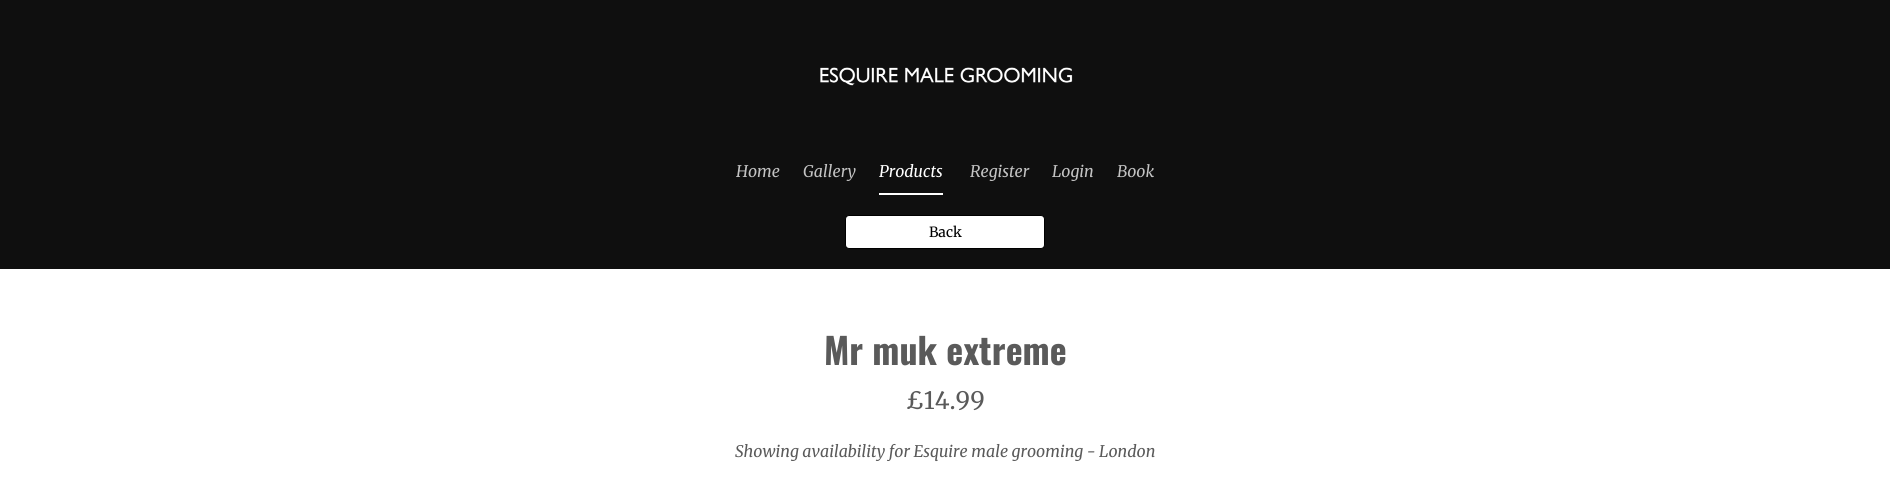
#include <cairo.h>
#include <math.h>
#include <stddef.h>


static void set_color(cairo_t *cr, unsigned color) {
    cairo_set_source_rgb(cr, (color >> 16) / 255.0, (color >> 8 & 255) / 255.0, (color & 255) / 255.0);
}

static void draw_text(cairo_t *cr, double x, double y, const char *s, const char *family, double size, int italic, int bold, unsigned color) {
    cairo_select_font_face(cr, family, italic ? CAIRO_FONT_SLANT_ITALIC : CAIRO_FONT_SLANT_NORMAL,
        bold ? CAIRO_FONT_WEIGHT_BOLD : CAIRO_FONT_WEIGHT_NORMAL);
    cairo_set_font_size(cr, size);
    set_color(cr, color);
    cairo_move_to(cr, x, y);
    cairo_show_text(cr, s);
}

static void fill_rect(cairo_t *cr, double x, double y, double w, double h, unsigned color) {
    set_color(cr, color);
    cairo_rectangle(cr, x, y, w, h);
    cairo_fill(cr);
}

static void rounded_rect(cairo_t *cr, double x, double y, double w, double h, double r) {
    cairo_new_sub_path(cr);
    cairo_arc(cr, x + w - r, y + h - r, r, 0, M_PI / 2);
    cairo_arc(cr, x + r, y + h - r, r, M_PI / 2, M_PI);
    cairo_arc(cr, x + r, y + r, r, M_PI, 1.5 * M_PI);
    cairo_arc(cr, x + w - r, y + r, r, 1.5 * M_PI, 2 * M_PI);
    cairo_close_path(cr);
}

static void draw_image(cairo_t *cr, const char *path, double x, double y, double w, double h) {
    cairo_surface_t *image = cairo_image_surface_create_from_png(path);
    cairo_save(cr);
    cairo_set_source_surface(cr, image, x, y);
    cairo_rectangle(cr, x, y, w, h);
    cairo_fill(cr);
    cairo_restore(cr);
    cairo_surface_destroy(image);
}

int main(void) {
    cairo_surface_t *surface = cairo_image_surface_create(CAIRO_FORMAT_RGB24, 1890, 502);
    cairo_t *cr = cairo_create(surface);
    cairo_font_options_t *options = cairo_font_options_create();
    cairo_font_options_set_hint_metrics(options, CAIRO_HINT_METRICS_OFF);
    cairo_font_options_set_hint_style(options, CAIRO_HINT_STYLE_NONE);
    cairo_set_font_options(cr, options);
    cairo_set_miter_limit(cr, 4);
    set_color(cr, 0xFFFFFF);
    cairo_paint(cr);
    fill_rect(cr, 0, 0, 1890, 269, 0x0F0F0F);
    draw_image(cr, "assets/img1.png", 820, 67, 253, 19);
    draw_text(cr, 736, 177, "Home", "Merriweather", 16, 1, 0, 0xC3C3C3);
    draw_text(cr, 803, 177, "Gallery", "Merriweather", 16, 1, 0, 0xC3C3C3);
    fill_rect(cr, 879, 193, 64, 2, 0xFFFFFF);
    draw_text(cr, 879, 177, "Products", "Merriweather", 16, 1, 0, 0xFFFFFF);
    draw_text(cr, 970, 177, "Register", "Merriweather", 16, 1, 0, 0xC3C3C3);
    draw_text(cr, 1052, 177, "Login", "Merriweather", 16, 1, 0, 0xC3C3C3);
    draw_text(cr, 1117, 177, "Book", "Merriweather", 16, 1, 0, 0xC3C3C3);
    set_color(cr, 0xFFFFFF);
    rounded_rect(cr, 845.5, 215.5, 199, 33, 3.5);
    cairo_fill_preserve(cr);
    set_color(cr, 0x000000);
    cairo_set_line_width(cr, 1);
    cairo_stroke(cr);
    draw_text(cr, 929, 237, "Back", "Merriweather", 14, 0, 0, 0x000000);
    draw_text(cr, 824, 365, "Mr muk extreme", "Oswald", 36, 0, 1, 0x5A5A5A);
    draw_text(cr, 906, 409, "£14.99", "Merriweather", 24, 0, 0, 0x5A5A5A);
    draw_text(cr, 735, 457, "Showing availability for Esquire male grooming - London", "Merriweather", 16, 1, 0, 0x5A5A5A);
    cairo_surface_write_to_png(surface, "output.png");
    cairo_font_options_destroy(options);
    cairo_destroy(cr);
    cairo_surface_destroy(surface);
    return 0;
}
